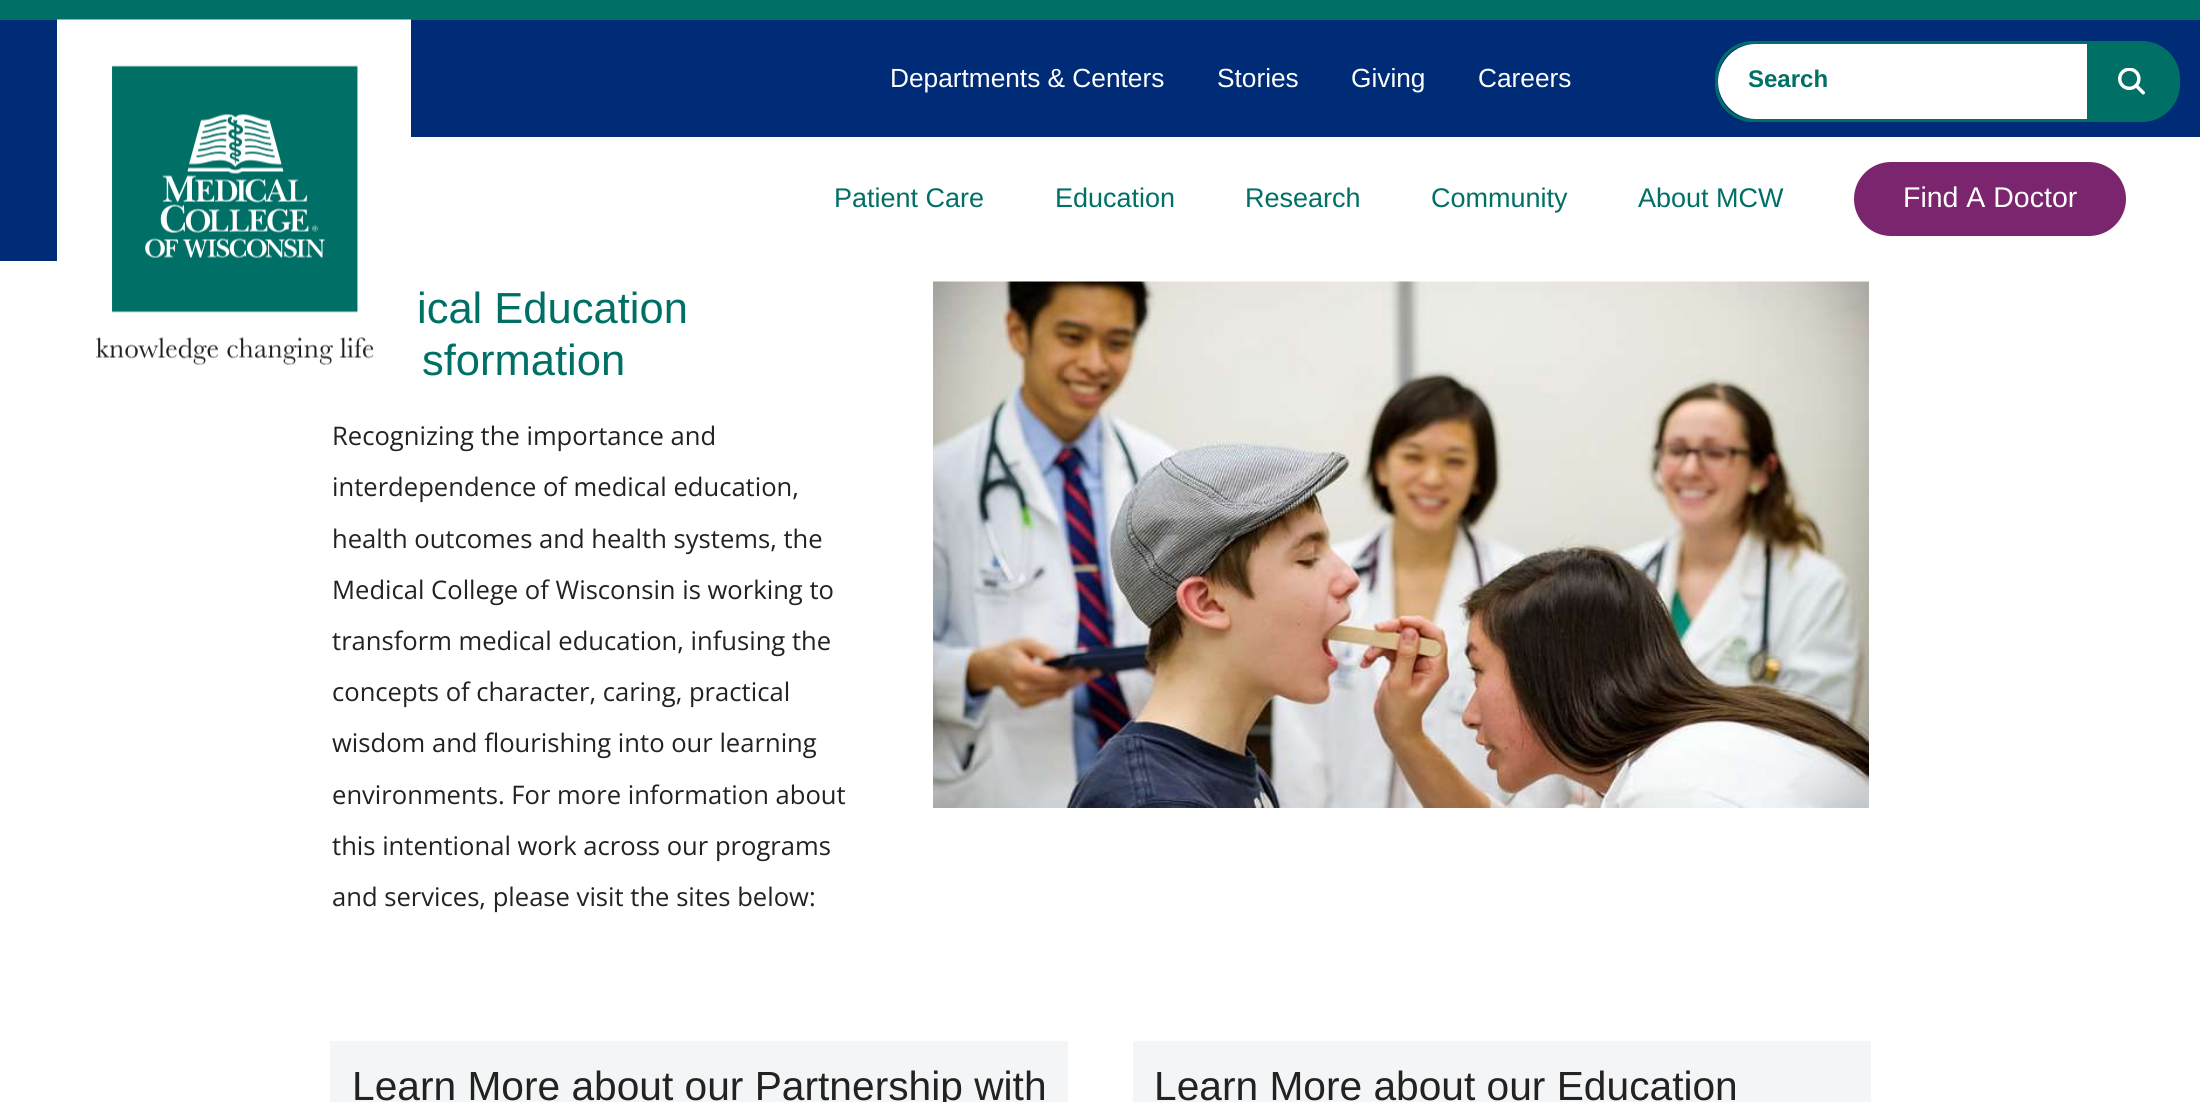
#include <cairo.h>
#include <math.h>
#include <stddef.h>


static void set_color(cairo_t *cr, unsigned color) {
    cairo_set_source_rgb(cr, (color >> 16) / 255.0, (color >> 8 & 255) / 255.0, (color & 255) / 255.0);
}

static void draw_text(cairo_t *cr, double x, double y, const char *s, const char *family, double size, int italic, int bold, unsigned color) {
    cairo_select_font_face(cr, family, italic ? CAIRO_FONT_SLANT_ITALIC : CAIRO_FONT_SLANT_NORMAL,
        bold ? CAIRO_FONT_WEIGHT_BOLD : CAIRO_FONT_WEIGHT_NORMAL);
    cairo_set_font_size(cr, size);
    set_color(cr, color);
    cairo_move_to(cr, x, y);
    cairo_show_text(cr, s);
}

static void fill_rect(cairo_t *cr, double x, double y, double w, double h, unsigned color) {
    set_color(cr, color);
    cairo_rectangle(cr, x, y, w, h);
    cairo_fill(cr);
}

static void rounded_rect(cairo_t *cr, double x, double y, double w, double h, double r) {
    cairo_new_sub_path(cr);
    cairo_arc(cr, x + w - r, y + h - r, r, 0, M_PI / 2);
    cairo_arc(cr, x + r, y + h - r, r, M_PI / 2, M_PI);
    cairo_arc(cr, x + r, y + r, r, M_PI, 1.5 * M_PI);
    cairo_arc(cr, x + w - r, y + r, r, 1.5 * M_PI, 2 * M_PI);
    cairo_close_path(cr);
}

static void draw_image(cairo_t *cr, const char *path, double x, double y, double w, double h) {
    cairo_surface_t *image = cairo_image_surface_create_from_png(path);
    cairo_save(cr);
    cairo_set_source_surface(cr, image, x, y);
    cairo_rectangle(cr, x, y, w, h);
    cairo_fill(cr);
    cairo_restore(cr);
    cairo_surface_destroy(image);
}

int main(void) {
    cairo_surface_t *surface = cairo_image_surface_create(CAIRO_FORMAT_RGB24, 2200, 1102);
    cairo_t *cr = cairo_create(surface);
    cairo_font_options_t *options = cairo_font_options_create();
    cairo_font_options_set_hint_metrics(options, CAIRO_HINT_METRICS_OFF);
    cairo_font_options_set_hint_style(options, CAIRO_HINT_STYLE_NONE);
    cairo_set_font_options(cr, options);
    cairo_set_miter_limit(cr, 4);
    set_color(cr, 0xFFFFFF);
    cairo_paint(cr);
    fill_rect(cr, 0, 0, 2200, 20, 0x007066);
    fill_rect(cr, 0, 20, 57, 241, 0x002C77);
    draw_image(cr, "assets/img1.png", 57, 19, 354, 357);
    fill_rect(cr, 411, 20, 1789, 117, 0x002C77);
    draw_text(cr, 890, 87, "Departments & Centers", "Liberation Sans", 26.25, 0, 0, 0xFFFFFF);
    draw_text(cr, 1217, 87, "Stories", "Liberation Sans", 26.25, 0, 0, 0xFFFFFF);
    draw_text(cr, 1351, 87, "Giving", "Liberation Sans", 26.25, 0, 0, 0xFFFFFF);
    draw_text(cr, 1478, 87, "Careers", "Liberation Sans", 26.25, 0, 0, 0xFFFFFF);
    rounded_rect(cr, 1716.5, 42.5, 462, 78, 36.5);
    set_color(cr, 0x007066);
    cairo_set_line_width(cr, 3);
    cairo_stroke(cr);
    set_color(cr, 0xFFFFFF);
    cairo_new_path(cr);
    cairo_move_to(cr, 1755.5, 44);
    cairo_line_to(cr, 2087, 44);
    cairo_line_to(cr, 2087, 119);
    cairo_line_to(cr, 1755.5, 119);
    cairo_curve_to(cr, 1735, 119, 1718, 102, 1718, 81.5);
    cairo_curve_to(cr, 1718, 61, 1735, 44, 1755.5, 44);
    cairo_close_path(cr);
    cairo_fill(cr);
    draw_text(cr, 1748, 87, "Search", "Liberation Sans", 24, 0, 1, 0x007066);
    cairo_new_path(cr);
    cairo_move_to(cr, 2087, 44);
    cairo_line_to(cr, 2144, 44);
    cairo_curve_to(cr, 2162, 44, 2177, 59, 2177, 77);
    cairo_line_to(cr, 2177, 86);
    cairo_curve_to(cr, 2177, 104, 2162, 119, 2144, 119);
    cairo_line_to(cr, 2087, 119);
    cairo_close_path(cr);
    cairo_fill(cr);
    draw_image(cr, "assets/img2.png", 2118, 68, 27, 27);
    draw_text(cr, 834, 207, "Patient Care", "Liberation Sans", 27, 0, 0, 0x007066);
    draw_text(cr, 1055, 207, "Education", "Liberation Sans", 27, 0, 0, 0x007066);
    draw_text(cr, 1245, 207, "Research", "Liberation Sans", 27, 0, 0, 0x007066);
    draw_text(cr, 1431, 207, "Community", "Liberation Sans", 27, 0, 0, 0x007066);
    draw_text(cr, 1638, 207, "About MCW", "Liberation Sans", 27, 0, 0, 0x007066);
    set_color(cr, 0x7A256E);
    rounded_rect(cr, 1855.5, 163.5, 269, 71, 35.5);
    cairo_fill_preserve(cr);
    cairo_stroke(cr);
    draw_text(cr, 1903, 207, "Find A Doctor", "Liberation Sans", 28.5, 0, 0, 0xFFFFFF);
    draw_text(cr, 417, 323, "ical Education", "Liberation Sans", 43.5, 0, 0, 0x007066);
    draw_text(cr, 422, 375, "sformation", "Liberation Sans", 43.5, 0, 0, 0x007066);
    draw_text(cr, 332, 445, "Recognizing the importance and", "Open Sans", 25.6, 0, 0, 0x222222);
    draw_text(cr, 332, 496, "interdependence of medical education,", "Open Sans", 25.6, 0, 0, 0x222222);
    draw_text(cr, 332, 548, "health outcomes and health systems, the", "Open Sans", 25.6, 0, 0, 0x222222);
    draw_text(cr, 332, 599, "Medical College of Wisconsin is working to", "Open Sans", 25.6, 0, 0, 0x222222);
    draw_text(cr, 332, 650, "transform medical education, infusing the", "Open Sans", 25.6, 0, 0, 0x222222);
    draw_text(cr, 332, 701, "concepts of character, caring, practical", "Open Sans", 25.6, 0, 0, 0x222222);
    draw_text(cr, 332, 752, "wisdom and flourishing into our learning", "Open Sans", 25.6, 0, 0, 0x222222);
    draw_text(cr, 332, 804, "environments. For more information about", "Open Sans", 25.6, 0, 0, 0x222222);
    draw_text(cr, 332, 855, "this intentional work across our programs", "Open Sans", 25.6, 0, 0, 0x222222);
    draw_text(cr, 332, 906, "and services, please visit the sites below:", "Open Sans", 25.6, 0, 0, 0x222222);
    draw_image(cr, "assets/img3.png", 933, 281, 936, 527);
    fill_rect(cr, 330, 1041, 738, 61, 0xF4F5F6);
    draw_text(cr, 352, 1100, "Learn More about our Partnership with", "Liberation Sans", 40.7, 0, 0, 0x222222);
    fill_rect(cr, 1133, 1041, 738, 61, 0xF4F5F6);
    draw_text(cr, 1154, 1100, "Learn More about our Education", "Liberation Sans", 40.7, 0, 0, 0x222222);
    cairo_surface_write_to_png(surface, "output.png");
    cairo_font_options_destroy(options);
    cairo_destroy(cr);
    cairo_surface_destroy(surface);
    return 0;
}
